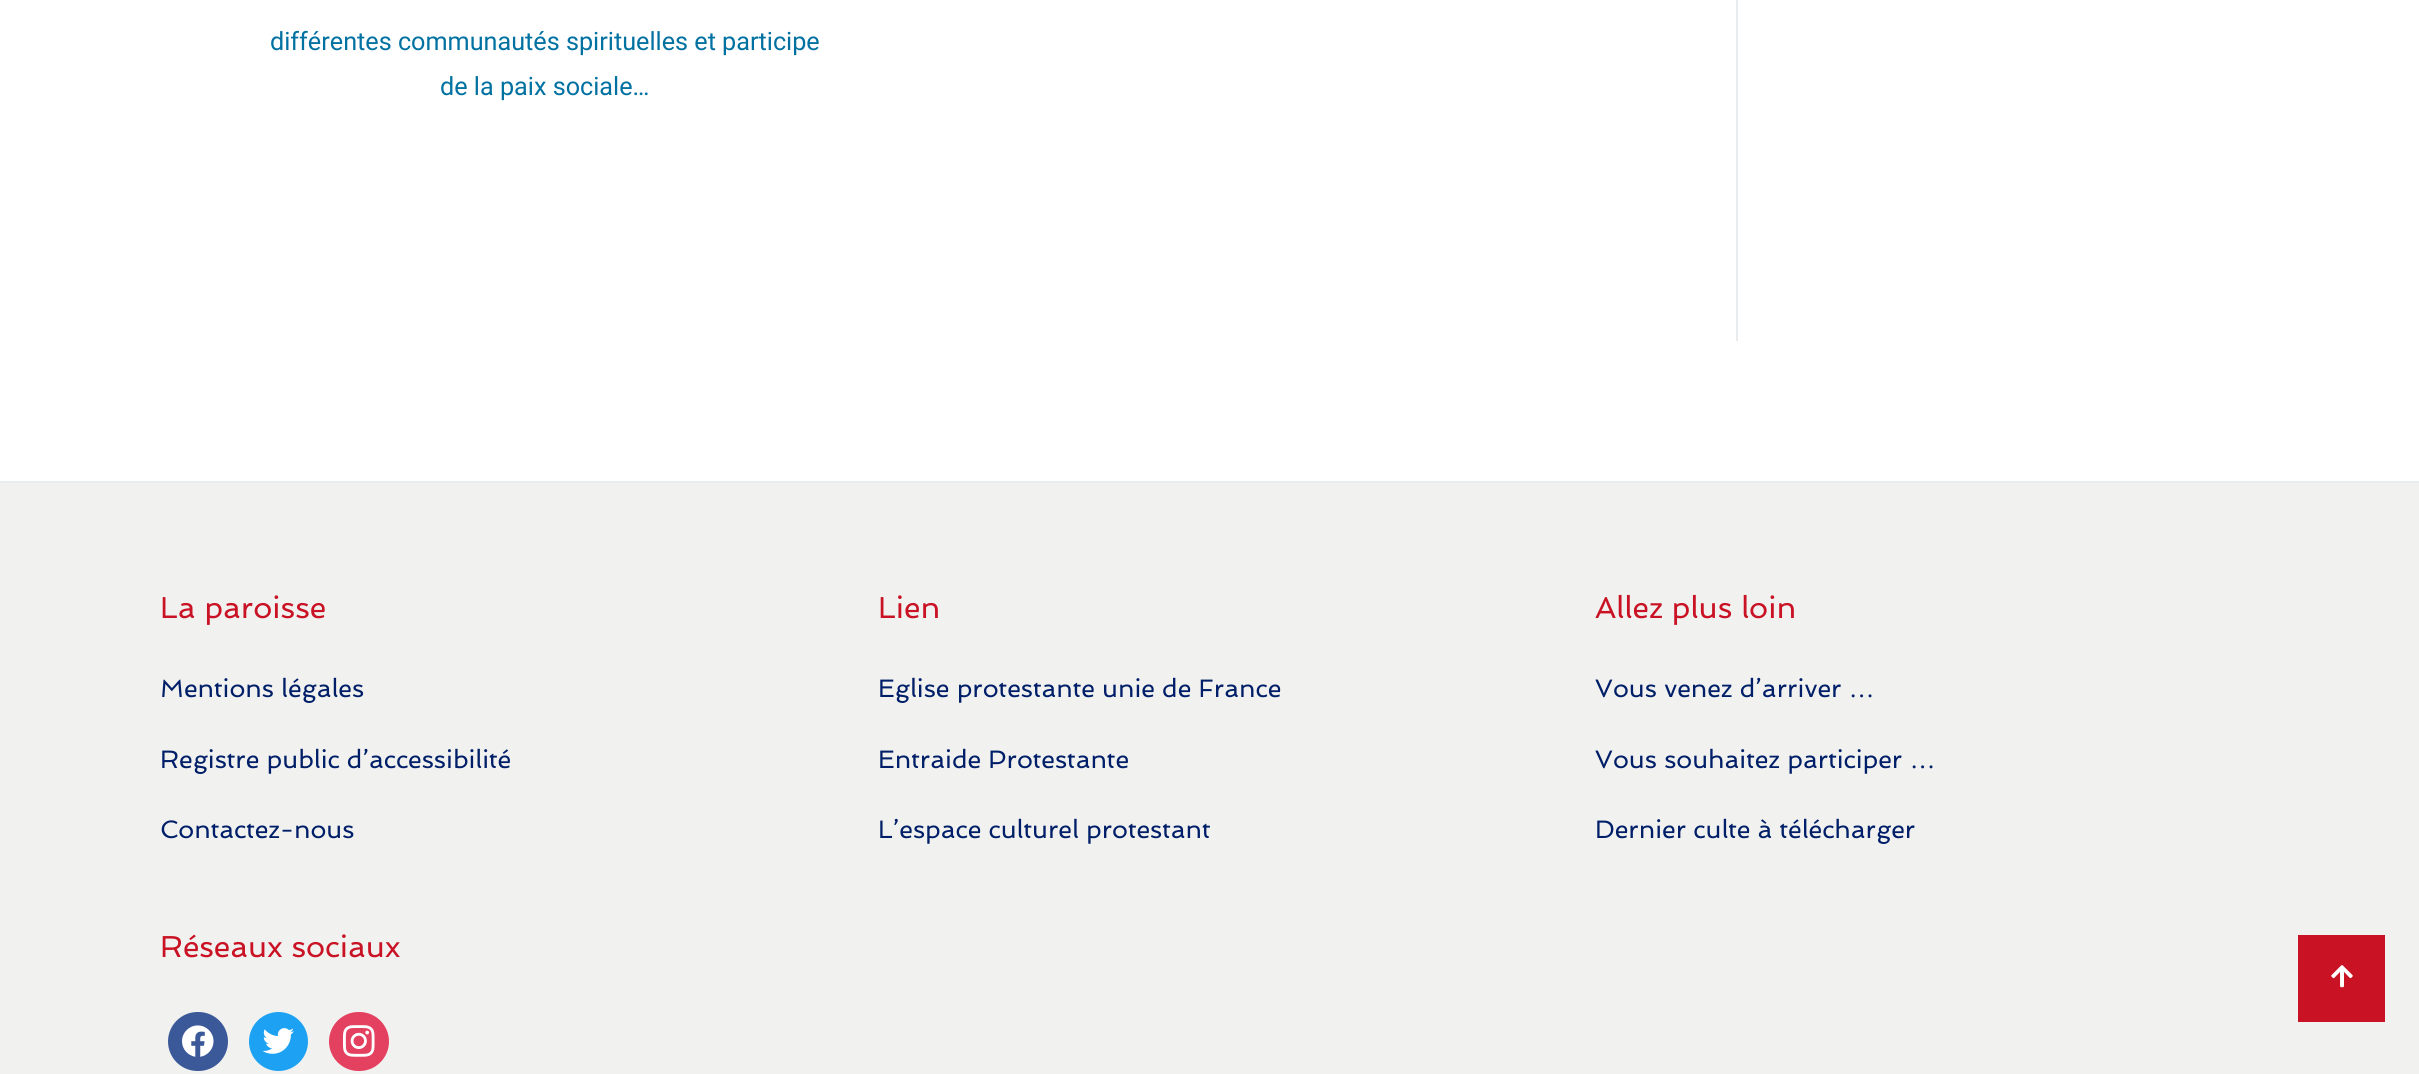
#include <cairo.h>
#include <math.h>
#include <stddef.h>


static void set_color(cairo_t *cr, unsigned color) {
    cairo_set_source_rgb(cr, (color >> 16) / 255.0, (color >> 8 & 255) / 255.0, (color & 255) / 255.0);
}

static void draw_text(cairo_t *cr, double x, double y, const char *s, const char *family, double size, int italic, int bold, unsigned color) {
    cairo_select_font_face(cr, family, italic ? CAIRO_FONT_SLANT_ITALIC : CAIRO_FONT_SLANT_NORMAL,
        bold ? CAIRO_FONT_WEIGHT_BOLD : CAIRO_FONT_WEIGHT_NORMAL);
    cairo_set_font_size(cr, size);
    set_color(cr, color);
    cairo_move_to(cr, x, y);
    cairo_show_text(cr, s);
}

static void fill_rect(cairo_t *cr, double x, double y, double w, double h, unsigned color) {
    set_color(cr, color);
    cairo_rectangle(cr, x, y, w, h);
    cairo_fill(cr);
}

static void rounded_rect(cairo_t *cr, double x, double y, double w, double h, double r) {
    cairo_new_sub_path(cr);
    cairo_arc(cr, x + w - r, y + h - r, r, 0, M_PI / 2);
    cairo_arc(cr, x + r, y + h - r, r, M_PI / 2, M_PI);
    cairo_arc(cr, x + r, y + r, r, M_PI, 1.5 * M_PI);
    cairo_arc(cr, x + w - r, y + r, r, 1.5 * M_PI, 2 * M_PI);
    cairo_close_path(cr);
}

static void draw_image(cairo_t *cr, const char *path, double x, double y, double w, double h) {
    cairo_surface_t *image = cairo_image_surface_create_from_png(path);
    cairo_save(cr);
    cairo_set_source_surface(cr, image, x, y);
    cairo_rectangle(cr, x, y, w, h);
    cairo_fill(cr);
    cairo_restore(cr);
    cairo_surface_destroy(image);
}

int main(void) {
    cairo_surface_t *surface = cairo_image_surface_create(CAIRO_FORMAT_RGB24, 2419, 1074);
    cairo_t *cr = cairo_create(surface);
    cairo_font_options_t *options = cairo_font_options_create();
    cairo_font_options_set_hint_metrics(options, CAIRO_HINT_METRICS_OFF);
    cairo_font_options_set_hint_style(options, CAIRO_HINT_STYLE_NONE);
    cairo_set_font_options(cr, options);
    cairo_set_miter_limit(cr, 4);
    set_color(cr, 0xFFFFFF);
    cairo_paint(cr);
    draw_text(cr, 270, 50, "différentes communautés spirituelles et participe", "Roboto", 25.2, 0, 0, 0x0071A1);
    draw_text(cr, 440, 95, "de la paix sociale…", "Roboto", 25.2, 0, 0, 0x0071A1);
    fill_rect(cr, 1736, 0, 2, 341, 0xE9ECEF);
    fill_rect(cr, 0, 483, 2419, 591, 0xF1F1F0);
    fill_rect(cr, 0, 481, 2419, 2, 0xE9ECEF);
    draw_text(cr, 160, 618, "La paroisse", "Spinnaker", 30.25, 0, 0, 0xC91224);
    draw_text(cr, 160, 697, "Mentions légales", "Spinnaker", 25.2, 0, 0, 0x001F68);
    draw_text(cr, 160, 768, "Registre public d’accessibilité", "Spinnaker", 25.2, 0, 0, 0x001F68);
    draw_text(cr, 160, 838, "Contactez-nous", "Spinnaker", 25.2, 0, 0, 0x001F68);
    draw_text(cr, 160, 957, "Réseaux sociaux", "Spinnaker", 30.25, 0, 0, 0xC91224);
    set_color(cr, 0x3B5998);
    rounded_rect(cr, 168, 1012, 60, 59, 29.5);
    cairo_fill(cr);
    draw_image(cr, "assets/img1.png", 182, 1025, 32, 32);
    set_color(cr, 0x1DA1F2);
    cairo_arc(cr, 278.5, 1041.5, 29.5, 0, 2 * M_PI);
    cairo_fill(cr);
    draw_image(cr, "assets/img2.png", 262, 1028, 32, 26);
    set_color(cr, 0xE4405F);
    rounded_rect(cr, 329, 1012, 60, 59, 29.5);
    cairo_fill(cr);
    draw_image(cr, "assets/img3.png", 343, 1025, 32, 32);
    draw_text(cr, 878, 618, "Lien", "Spinnaker", 30.25, 0, 0, 0xC91224);
    draw_text(cr, 878, 697, "Eglise protestante unie de France", "Spinnaker", 25.2, 0, 0, 0x001F68);
    draw_text(cr, 878, 768, "Entraide Protestante", "Spinnaker", 25.2, 0, 0, 0x001F68);
    draw_text(cr, 878, 838, "L’espace culturel protestant", "Spinnaker", 25.2, 0, 0, 0x001F68);
    draw_text(cr, 1595, 618, "Allez plus loin", "Spinnaker", 30.25, 0, 0, 0xC91224);
    draw_text(cr, 1595, 697, "Vous venez d’arriver", "Spinnaker", 25.2, 0, 0, 0x001F68);
    draw_text(cr, 1849, 697, "…", "Liberation Serif", 25.2, 0, 0, 0x001F68);
    draw_text(cr, 1595, 768, "Vous souhaitez participer", "Spinnaker", 25.2, 0, 0, 0x001F68);
    draw_text(cr, 1910, 768, "…", "Liberation Serif", 25.2, 0, 0, 0x001F68);
    draw_text(cr, 1595, 838, "Dernier culte à télécharger", "Spinnaker", 25.2, 0, 0, 0x001F68);
    fill_rect(cr, 2298, 935, 87, 87, 0xC91224);
    draw_image(cr, "assets/img4.png", 2331, 965, 22, 23);
    cairo_surface_write_to_png(surface, "output.png");
    cairo_font_options_destroy(options);
    cairo_destroy(cr);
    cairo_surface_destroy(surface);
    return 0;
}
